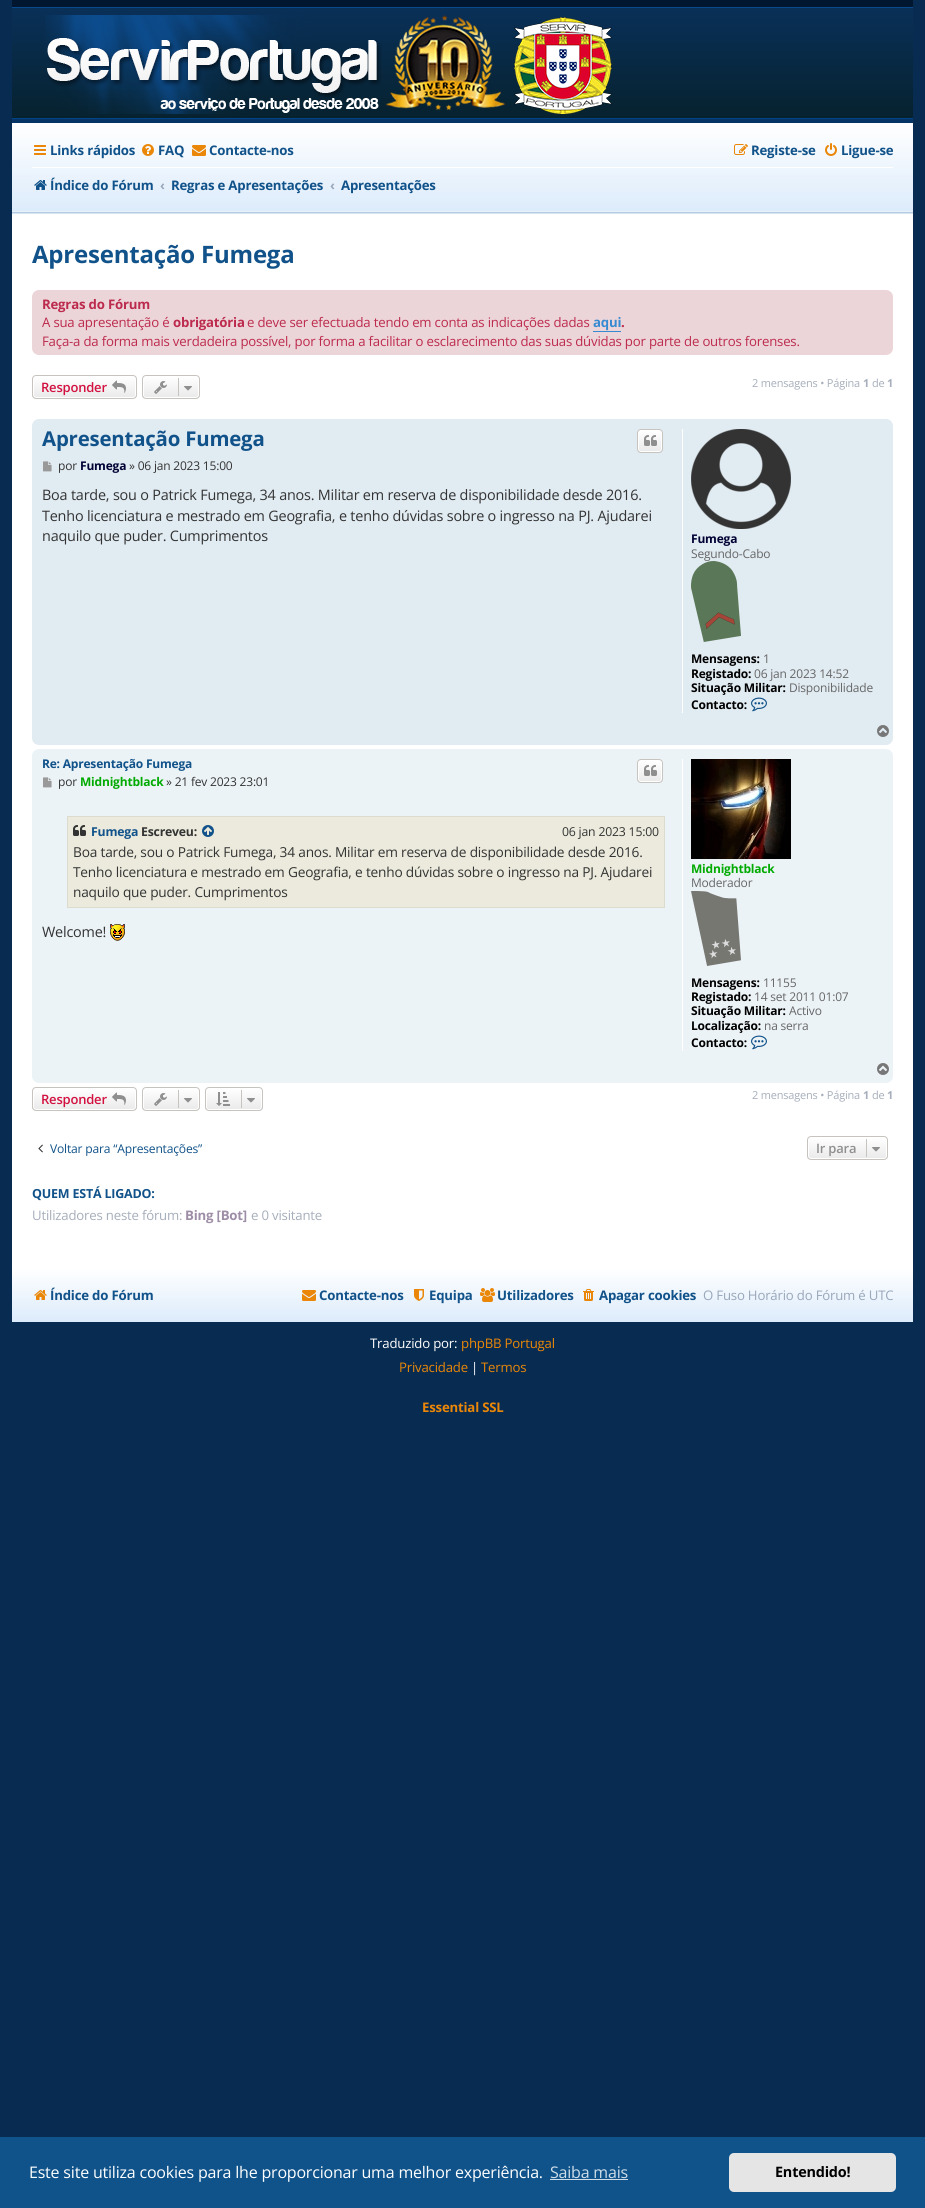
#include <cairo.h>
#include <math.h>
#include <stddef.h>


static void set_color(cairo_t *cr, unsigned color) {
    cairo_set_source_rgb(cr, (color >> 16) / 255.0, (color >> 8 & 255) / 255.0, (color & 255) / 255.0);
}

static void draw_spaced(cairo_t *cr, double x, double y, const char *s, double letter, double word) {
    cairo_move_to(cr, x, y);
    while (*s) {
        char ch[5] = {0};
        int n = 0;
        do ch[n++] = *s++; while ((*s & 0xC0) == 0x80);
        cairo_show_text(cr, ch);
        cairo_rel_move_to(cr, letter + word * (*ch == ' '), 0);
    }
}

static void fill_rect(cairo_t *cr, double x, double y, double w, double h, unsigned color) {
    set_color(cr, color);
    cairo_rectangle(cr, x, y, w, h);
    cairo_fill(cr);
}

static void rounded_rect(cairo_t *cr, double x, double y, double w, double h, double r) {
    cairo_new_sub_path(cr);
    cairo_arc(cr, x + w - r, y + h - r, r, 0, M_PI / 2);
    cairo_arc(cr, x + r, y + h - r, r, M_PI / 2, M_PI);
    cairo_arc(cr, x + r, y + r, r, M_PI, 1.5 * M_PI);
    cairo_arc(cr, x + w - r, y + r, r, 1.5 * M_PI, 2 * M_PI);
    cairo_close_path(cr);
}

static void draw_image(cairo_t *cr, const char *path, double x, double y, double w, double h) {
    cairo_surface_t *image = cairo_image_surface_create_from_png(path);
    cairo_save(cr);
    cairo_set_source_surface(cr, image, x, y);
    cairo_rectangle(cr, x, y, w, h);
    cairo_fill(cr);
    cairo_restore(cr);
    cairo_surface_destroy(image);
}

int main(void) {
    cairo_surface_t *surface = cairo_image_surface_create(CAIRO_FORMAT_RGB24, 925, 2208);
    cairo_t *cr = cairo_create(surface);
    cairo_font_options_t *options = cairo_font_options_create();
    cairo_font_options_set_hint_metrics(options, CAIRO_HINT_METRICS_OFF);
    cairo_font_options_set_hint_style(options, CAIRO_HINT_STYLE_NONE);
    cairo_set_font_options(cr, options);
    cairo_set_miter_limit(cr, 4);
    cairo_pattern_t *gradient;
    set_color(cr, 0x082B51);
    cairo_paint(cr);
    fill_rect(cr, 12, 214, 901, 1054, 0xFFFFFF);
    fill_rect(cr, 12, 0, 901, 7, 0x01172F);
    gradient = cairo_pattern_create_linear(463, 118, 463, 8);
    cairo_pattern_add_color_stop_rgba(gradient, 0, 0.027, 0.133, 0.184, 1);
    cairo_pattern_add_color_stop_rgba(gradient, 1, 0.035, 0.188, 0.345, 1);
    cairo_set_source(cr, gradient);
    cairo_pattern_destroy(gradient);
    cairo_rectangle(cr, 12, 8, 901, 110);
    cairo_fill(cr);
    fill_rect(cr, 12, 7, 901, 1, 0x0A498E);
    fill_rect(cr, 12, 118, 901, 1, 0x004389);
    draw_image(cr, "assets/img1.png", 45, 15, 567, 99);
    fill_rect(cr, 12, 213, 901, 1, 0xD9E6F1);
    gradient = cairo_pattern_create_linear(463, 212, 463, 123);
    cairo_pattern_add_color_stop_rgba(gradient, 0, 0.863, 0.922, 0.984, 1);
    cairo_pattern_add_color_stop_rgba(gradient, 1, 1, 1, 1, 1);
    cairo_set_source(cr, gradient);
    cairo_pattern_destroy(gradient);
    cairo_rectangle(cr, 12, 123, 901, 88);
    cairo_fill(cr);
    fill_rect(cr, 12, 211, 901, 1, 0xE7F1FC);
    fill_rect(cr, 12, 119, 901, 4, 0x063465);
    fill_rect(cr, 12, 212, 901, 1, 0xB3CCE4);
    draw_image(cr, "assets/img2.png", 34, 145, 12, 10);
    cairo_select_font_face(cr, "Open Sans", CAIRO_FONT_SLANT_NORMAL, CAIRO_FONT_WEIGHT_BOLD);
    cairo_set_font_size(cr, 13.2);
    set_color(cr, 0x105289);
    draw_spaced(cr, 50, 155, "Links rápidos", -0.2, 0);
    draw_image(cr, "assets/img3.png", 142, 144, 12, 12);
    draw_spaced(cr, 158, 155, "FAQ", -0.2, 0);
    draw_image(cr, "assets/img4.png", 192, 145, 14, 11);
    draw_spaced(cr, 209, 155, "Contacte-nos", -0.2, 0);
    draw_image(cr, "assets/img5.png", 734, 144, 14, 11);
    draw_spaced(cr, 751, 155, "Registe-se", -0.2, 0);
    draw_image(cr, "assets/img6.png", 825, 143, 12, 13);
    draw_spaced(cr, 841, 155, "Ligue-se", -0.2, 0);
    fill_rect(cr, 32, 167, 861, 1, 0xFFFFFF);
    draw_image(cr, "assets/img7.png", 34, 180, 13, 10);
    set_color(cr, 0x105289);
    draw_spaced(cr, 50, 190, "Índice do Fórum", -0.2, 0);
    set_color(cr, 0x99A7BA);
    draw_spaced(cr, 160, 190, "‹", -0.2, 0);
    set_color(cr, 0x105289);
    draw_spaced(cr, 171, 190, "Regras e Apresentações", -0.2, 0);
    set_color(cr, 0x99A7BA);
    draw_spaced(cr, 330, 190, "‹", -0.2, 0);
    set_color(cr, 0x105289);
    draw_spaced(cr, 341, 190, "Apresentações", -0.2, 0);
    cairo_set_font_size(cr, 24);
    draw_spaced(cr, 32, 263, "Apresentação Fumega", -0.2, 0);
    set_color(cr, 0xECD5D8);
    rounded_rect(cr, 32, 290, 861, 65, 7);
    cairo_fill(cr);
    cairo_set_font_size(cr, 13.2);
    set_color(cr, 0xBC2A4D);
    draw_spaced(cr, 42, 309, "Regras do Fórum", -0.2, 0);
    cairo_select_font_face(cr, "Open Sans", CAIRO_FONT_SLANT_NORMAL, CAIRO_FONT_WEIGHT_NORMAL);
    draw_spaced(cr, 42, 327, "A sua apresentação é", -0.2, 0);
    cairo_select_font_face(cr, "Open Sans", CAIRO_FONT_SLANT_NORMAL, CAIRO_FONT_WEIGHT_BOLD);
    draw_spaced(cr, 173, 327, "obrigatória", -0.2, 0);
    cairo_select_font_face(cr, "Open Sans", CAIRO_FONT_SLANT_NORMAL, CAIRO_FONT_WEIGHT_NORMAL);
    draw_spaced(cr, 247, 327, "e deve ser efectuada tendo em conta as indicações dadas", -0.2, 0);
    fill_rect(cr, 593, 331, 28, 1, 0x368AD2);
    cairo_select_font_face(cr, "Open Sans", CAIRO_FONT_SLANT_NORMAL, CAIRO_FONT_WEIGHT_BOLD);
    draw_spaced(cr, 593, 327, "aqui", -0.2, 0);
    set_color(cr, 0xBC2A4D);
    draw_spaced(cr, 621, 327, ".", -0.2, 0);
    cairo_select_font_face(cr, "Open Sans", CAIRO_FONT_SLANT_NORMAL, CAIRO_FONT_WEIGHT_NORMAL);
    draw_spaced(cr, 42, 346, "Faça-a da forma mais verdadeira possível, por forma a facilitar o esclarecimento das suas dúvidas por parte de outros forenses.", -0.2, 0);
    cairo_save(cr);
    rounded_rect(cr, 32, 375, 105, 24, 4);
    cairo_clip(cr);
    gradient = cairo_pattern_create_linear(85, 376, 85, 398);
    cairo_pattern_add_color_stop_rgba(gradient, 0, 1, 1, 1, 1);
    cairo_pattern_add_color_stop_rgba(gradient, 1, 0.914, 0.914, 0.914, 1);
    cairo_set_source(cr, gradient);
    cairo_pattern_destroy(gradient);
    cairo_rectangle(cr, 32, 376, 105, 22);
    cairo_fill(cr);
    cairo_restore(cr);
    rounded_rect(cr, 33.5, 376.5, 102, 21, 2.5);
    set_color(cr, 0xFFFFFF);
    cairo_set_line_width(cr, 1);
    cairo_stroke(cr);
    rounded_rect(cr, 32.5, 375.5, 104, 23, 3.5);
    set_color(cr, 0xC7C3BF);
    cairo_stroke(cr);
    cairo_select_font_face(cr, "Open Sans SemiBold", CAIRO_FONT_SLANT_NORMAL, CAIRO_FONT_WEIGHT_NORMAL);
    cairo_set_font_size(cr, 13);
    set_color(cr, 0xD31141);
    draw_spaced(cr, 41, 392, "Responder", -0.2, 0);
    draw_image(cr, "assets/img8.png", 112, 380, 14, 13);
    cairo_save(cr);
    rounded_rect(cr, 142, 375, 58, 24, 4);
    cairo_clip(cr);
    gradient = cairo_pattern_create_linear(171, 376, 171, 398);
    cairo_pattern_add_color_stop_rgba(gradient, 0, 1, 1, 1, 1);
    cairo_pattern_add_color_stop_rgba(gradient, 1, 0.914, 0.914, 0.914, 1);
    cairo_set_source(cr, gradient);
    cairo_pattern_destroy(gradient);
    cairo_rectangle(cr, 142, 376, 58, 22);
    cairo_fill(cr);
    cairo_restore(cr);
    rounded_rect(cr, 143.5, 376.5, 55, 21, 2.5);
    set_color(cr, 0xFFFFFF);
    cairo_stroke(cr);
    rounded_rect(cr, 142.5, 375.5, 57, 23, 3.5);
    set_color(cr, 0xC7C3BF);
    cairo_stroke(cr);
    draw_image(cr, "assets/img9.png", 154, 381, 13, 13);
    fill_rect(cr, 178, 378, 1, 18, 0xC7C3BF);
    draw_image(cr, "assets/img10.png", 184, 386, 8, 5);
    cairo_select_font_face(cr, "Open Sans", CAIRO_FONT_SLANT_NORMAL, CAIRO_FONT_WEIGHT_NORMAL);
    cairo_set_font_size(cr, 11);
    set_color(cr, 0xA6AEBB);
    draw_spaced(cr, 752, 387, "2 mensagens • Página", -0.2, 0);
    cairo_select_font_face(cr, "Open Sans", CAIRO_FONT_SLANT_NORMAL, CAIRO_FONT_WEIGHT_BOLD);
    draw_spaced(cr, 863, 387, "1", -0.2, 0);
    cairo_select_font_face(cr, "Open Sans", CAIRO_FONT_SLANT_NORMAL, CAIRO_FONT_WEIGHT_NORMAL);
    draw_spaced(cr, 872, 387, "de", -0.2, 0);
    cairo_select_font_face(cr, "Open Sans", CAIRO_FONT_SLANT_NORMAL, CAIRO_FONT_WEIGHT_BOLD);
    draw_spaced(cr, 887, 387, "1", -0.2, 0);
    set_color(cr, 0xE1EBF2);
    rounded_rect(cr, 32, 419, 861, 326, 7);
    cairo_fill(cr);
    cairo_set_font_size(cr, 20.4);
    set_color(cr, 0x105289);
    draw_spaced(cr, 42, 446, "Apresentação Fumega", -0.2, 0);
    cairo_save(cr);
    rounded_rect(cr, 637, 429, 26, 24, 4);
    cairo_clip(cr);
    gradient = cairo_pattern_create_linear(650, 430, 650, 452);
    cairo_pattern_add_color_stop_rgba(gradient, 0, 1, 1, 1, 1);
    cairo_pattern_add_color_stop_rgba(gradient, 1, 0.914, 0.914, 0.914, 1);
    cairo_set_source(cr, gradient);
    cairo_pattern_destroy(gradient);
    cairo_rectangle(cr, 637, 430, 26, 22);
    cairo_fill(cr);
    cairo_restore(cr);
    rounded_rect(cr, 638.5, 430.5, 23, 21, 2.5);
    set_color(cr, 0xFFFFFF);
    cairo_stroke(cr);
    rounded_rect(cr, 637.5, 429.5, 25, 23, 3.5);
    set_color(cr, 0xC7C3BF);
    cairo_stroke(cr);
    draw_image(cr, "assets/img11.png", 644, 435, 13, 11);
    draw_image(cr, "assets/img12.png", 43, 461, 9, 11);
    cairo_select_font_face(cr, "Open Sans", CAIRO_FONT_SLANT_NORMAL, CAIRO_FONT_WEIGHT_NORMAL);
    cairo_set_font_size(cr, 12);
    set_color(cr, 0x333333);
    draw_spaced(cr, 58, 470, "por", -0.2, 0);
    cairo_select_font_face(cr, "Open Sans", CAIRO_FONT_SLANT_NORMAL, CAIRO_FONT_WEIGHT_BOLD);
    set_color(cr, 0x000033);
    draw_spaced(cr, 80, 470, "Fumega", -0.2, 0);
    cairo_select_font_face(cr, "Open Sans", CAIRO_FONT_SLANT_NORMAL, CAIRO_FONT_WEIGHT_NORMAL);
    set_color(cr, 0x333333);
    draw_spaced(cr, 129, 470, "» 06 jan 2023 15:00", -0.2, 0);
    cairo_set_font_size(cr, 14.4);
    draw_spaced(cr, 42, 500, "Boa tarde, sou o Patrick Fumega, 34 anos. Militar em reserva de disponibilidade desde 2016.", -0.2, 0);
    draw_spaced(cr, 42, 521, "Tenho licenciatura e mestrado em Geografia, e tenho dúvidas sobre o ingresso na PJ. Ajudarei", -0.2, 0);
    draw_spaced(cr, 42, 541, "naquilo que puder. Cumprimentos", -0.2, 0);
    fill_rect(cr, 682, 429, 1, 284, 0xFFFFFF);
    draw_image(cr, "assets/img13.png", 691, 429, 100, 100);
    cairo_select_font_face(cr, "Open Sans", CAIRO_FONT_SLANT_NORMAL, CAIRO_FONT_WEIGHT_BOLD);
    cairo_set_font_size(cr, 12);
    set_color(cr, 0x000033);
    draw_spaced(cr, 691, 543, "Fumega", -0.2, 0);
    cairo_select_font_face(cr, "Open Sans", CAIRO_FONT_SLANT_NORMAL, CAIRO_FONT_WEIGHT_NORMAL);
    set_color(cr, 0x666666);
    draw_spaced(cr, 691, 558, "Segundo-Cabo", -0.2, 0);
    draw_image(cr, "assets/img14.png", 691, 561, 50, 81);
    cairo_select_font_face(cr, "Open Sans", CAIRO_FONT_SLANT_NORMAL, CAIRO_FONT_WEIGHT_BOLD);
    set_color(cr, 0x000000);
    draw_spaced(cr, 691, 663, "Mensagens:", -0.2, 0);
    cairo_select_font_face(cr, "Open Sans", CAIRO_FONT_SLANT_NORMAL, CAIRO_FONT_WEIGHT_NORMAL);
    set_color(cr, 0x666666);
    draw_spaced(cr, 763, 663, "1", -0.2, 0);
    cairo_select_font_face(cr, "Open Sans", CAIRO_FONT_SLANT_NORMAL, CAIRO_FONT_WEIGHT_BOLD);
    set_color(cr, 0x000000);
    draw_spaced(cr, 691, 678, "Registado:", -0.2, 0);
    cairo_select_font_face(cr, "Open Sans", CAIRO_FONT_SLANT_NORMAL, CAIRO_FONT_WEIGHT_NORMAL);
    set_color(cr, 0x666666);
    draw_spaced(cr, 754, 678, "06 jan 2023 14:52", -0.2, 0);
    cairo_select_font_face(cr, "Open Sans", CAIRO_FONT_SLANT_NORMAL, CAIRO_FONT_WEIGHT_BOLD);
    set_color(cr, 0x000000);
    draw_spaced(cr, 691, 692, "Situação Militar:", -0.2, 0);
    cairo_select_font_face(cr, "Open Sans", CAIRO_FONT_SLANT_NORMAL, CAIRO_FONT_WEIGHT_NORMAL);
    set_color(cr, 0x666666);
    draw_spaced(cr, 789, 692, "Disponibilidade", -0.2, 0);
    cairo_select_font_face(cr, "Open Sans", CAIRO_FONT_SLANT_NORMAL, CAIRO_FONT_WEIGHT_BOLD);
    set_color(cr, 0x000000);
    draw_spaced(cr, 691, 709, "Contacto:", -0.2, 0);
    draw_image(cr, "assets/img15.png", 751, 697, 16, 15);
    draw_image(cr, "assets/img16.png", 877, 725, 12, 12);
    set_color(cr, 0xECF3F7);
    rounded_rect(cr, 32, 749, 861, 334, 7);
    cairo_fill(cr);
    set_color(cr, 0x105289);
    draw_spaced(cr, 42, 768, "Re: Apresentação Fumega", -0.2, 0);
    cairo_save(cr);
    rounded_rect(cr, 637, 759, 26, 24, 4);
    cairo_clip(cr);
    gradient = cairo_pattern_create_linear(650, 760, 650, 782);
    cairo_pattern_add_color_stop_rgba(gradient, 0, 1, 1, 1, 1);
    cairo_pattern_add_color_stop_rgba(gradient, 1, 0.914, 0.914, 0.914, 1);
    cairo_set_source(cr, gradient);
    cairo_pattern_destroy(gradient);
    cairo_rectangle(cr, 637, 760, 26, 22);
    cairo_fill(cr);
    cairo_restore(cr);
    rounded_rect(cr, 638.5, 760.5, 23, 21, 2.5);
    set_color(cr, 0xFFFFFF);
    cairo_stroke(cr);
    rounded_rect(cr, 637.5, 759.5, 25, 23, 3.5);
    set_color(cr, 0xC7C3BF);
    cairo_stroke(cr);
    draw_image(cr, "assets/img11.png", 644, 765, 13, 11);
    draw_image(cr, "assets/img17.png", 43, 777, 9, 11);
    cairo_select_font_face(cr, "Open Sans", CAIRO_FONT_SLANT_NORMAL, CAIRO_FONT_WEIGHT_NORMAL);
    set_color(cr, 0x333333);
    draw_spaced(cr, 58, 786, "por", -0.2, 0);
    cairo_select_font_face(cr, "Open Sans", CAIRO_FONT_SLANT_NORMAL, CAIRO_FONT_WEIGHT_BOLD);
    set_color(cr, 0x00AA00);
    draw_spaced(cr, 80, 786, "Midnightblack", -0.2, 0);
    cairo_select_font_face(cr, "Open Sans", CAIRO_FONT_SLANT_NORMAL, CAIRO_FONT_WEIGHT_NORMAL);
    set_color(cr, 0x333333);
    draw_spaced(cr, 166, 786, "» 21 fev 2023 23:01", -0.2, 0);
    set_color(cr, 0xEBEADD);
    cairo_rectangle(cr, 67.5, 816.5, 597, 91);
    cairo_fill_preserve(cr);
    set_color(cr, 0xDBDBCE);
    cairo_stroke(cr);
    draw_image(cr, "assets/img18.png", 73, 825, 13, 11);
    cairo_select_font_face(cr, "Open Sans", CAIRO_FONT_SLANT_NORMAL, CAIRO_FONT_WEIGHT_BOLD);
    cairo_set_font_size(cr, 12.25);
    set_color(cr, 0x105289);
    draw_spaced(cr, 91, 836, "Fumega", -0.2, 0);
    set_color(cr, 0x333333);
    draw_spaced(cr, 141, 836, "Escreveu:", -0.2, 0);
    draw_image(cr, "assets/img19.png", 202, 825, 12, 12);
    cairo_select_font_face(cr, "Open Sans", CAIRO_FONT_SLANT_NORMAL, CAIRO_FONT_WEIGHT_NORMAL);
    draw_spaced(cr, 562, 836, "06 jan 2023 15:00", -0.2, 0);
    cairo_set_font_size(cr, 13.7);
    draw_spaced(cr, 73, 857, "Boa tarde, sou o Patrick Fumega, 34 anos. Militar em reserva de disponibilidade desde 2016.", -0.2, 0);
    draw_spaced(cr, 73, 877, "Tenho licenciatura e mestrado em Geografia, e tenho dúvidas sobre o ingresso na PJ. Ajudarei", -0.2, 0);
    draw_spaced(cr, 73, 897, "naquilo que puder. Cumprimentos", -0.2, 0);
    cairo_set_font_size(cr, 14.4);
    draw_spaced(cr, 42, 937, "Welcome!", -0.2, 0);
    draw_image(cr, "assets/img20.png", 110, 924, 15, 17);
    fill_rect(cr, 682, 759, 1, 292, 0xFFFFFF);
    draw_image(cr, "assets/img21.png", 691, 759, 100, 100);
    cairo_select_font_face(cr, "Open Sans", CAIRO_FONT_SLANT_NORMAL, CAIRO_FONT_WEIGHT_BOLD);
    cairo_set_font_size(cr, 12);
    set_color(cr, 0x00AA00);
    draw_spaced(cr, 691, 873, "Midnightblack", -0.2, 0);
    cairo_select_font_face(cr, "Open Sans", CAIRO_FONT_SLANT_NORMAL, CAIRO_FONT_WEIGHT_NORMAL);
    set_color(cr, 0x666666);
    draw_spaced(cr, 691, 887, "Moderador", -0.2, 0);
    draw_image(cr, "assets/img22.png", 691, 891, 50, 75);
    cairo_select_font_face(cr, "Open Sans", CAIRO_FONT_SLANT_NORMAL, CAIRO_FONT_WEIGHT_BOLD);
    set_color(cr, 0x000000);
    draw_spaced(cr, 691, 987, "Mensagens:", -0.2, 0);
    cairo_select_font_face(cr, "Open Sans", CAIRO_FONT_SLANT_NORMAL, CAIRO_FONT_WEIGHT_NORMAL);
    set_color(cr, 0x666666);
    draw_spaced(cr, 763, 987, "11155", -0.2, 0);
    cairo_select_font_face(cr, "Open Sans", CAIRO_FONT_SLANT_NORMAL, CAIRO_FONT_WEIGHT_BOLD);
    set_color(cr, 0x000000);
    draw_spaced(cr, 691, 1001, "Registado:", -0.2, 0);
    cairo_select_font_face(cr, "Open Sans", CAIRO_FONT_SLANT_NORMAL, CAIRO_FONT_WEIGHT_NORMAL);
    set_color(cr, 0x666666);
    draw_spaced(cr, 754, 1001, "14 set 2011 01:07", -0.2, 0);
    cairo_select_font_face(cr, "Open Sans", CAIRO_FONT_SLANT_NORMAL, CAIRO_FONT_WEIGHT_BOLD);
    set_color(cr, 0x000000);
    draw_spaced(cr, 691, 1015, "Situação Militar:", -0.2, 0);
    cairo_select_font_face(cr, "Open Sans", CAIRO_FONT_SLANT_NORMAL, CAIRO_FONT_WEIGHT_NORMAL);
    set_color(cr, 0x666666);
    draw_spaced(cr, 789, 1015, "Activo", -0.2, 0);
    cairo_select_font_face(cr, "Open Sans", CAIRO_FONT_SLANT_NORMAL, CAIRO_FONT_WEIGHT_BOLD);
    set_color(cr, 0x000000);
    draw_spaced(cr, 691, 1030, "Localização:", -0.2, 0);
    cairo_select_font_face(cr, "Open Sans", CAIRO_FONT_SLANT_NORMAL, CAIRO_FONT_WEIGHT_NORMAL);
    set_color(cr, 0x666666);
    draw_spaced(cr, 764, 1030, "na serra", -0.2, 0);
    cairo_select_font_face(cr, "Open Sans", CAIRO_FONT_SLANT_NORMAL, CAIRO_FONT_WEIGHT_BOLD);
    set_color(cr, 0x000000);
    draw_spaced(cr, 691, 1047, "Contacto:", -0.2, 0);
    draw_image(cr, "assets/img23.png", 751, 1035, 16, 15);
    draw_image(cr, "assets/img24.png", 877, 1063, 12, 12);
    cairo_save(cr);
    rounded_rect(cr, 32, 1087, 105, 24, 4);
    cairo_clip(cr);
    gradient = cairo_pattern_create_linear(85, 1088, 85, 1110);
    cairo_pattern_add_color_stop_rgba(gradient, 0, 1, 1, 1, 1);
    cairo_pattern_add_color_stop_rgba(gradient, 1, 0.914, 0.914, 0.914, 1);
    cairo_set_source(cr, gradient);
    cairo_pattern_destroy(gradient);
    cairo_rectangle(cr, 32, 1088, 105, 22);
    cairo_fill(cr);
    cairo_restore(cr);
    rounded_rect(cr, 33.5, 1088.5, 102, 21, 2.5);
    set_color(cr, 0xFFFFFF);
    cairo_stroke(cr);
    rounded_rect(cr, 32.5, 1087.5, 104, 23, 3.5);
    set_color(cr, 0xC7C3BF);
    cairo_stroke(cr);
    cairo_select_font_face(cr, "Open Sans SemiBold", CAIRO_FONT_SLANT_NORMAL, CAIRO_FONT_WEIGHT_NORMAL);
    cairo_set_font_size(cr, 13);
    set_color(cr, 0xD31141);
    draw_spaced(cr, 41, 1104, "Responder", -0.2, 0);
    draw_image(cr, "assets/img8.png", 112, 1092, 14, 13);
    cairo_save(cr);
    rounded_rect(cr, 142, 1087, 58, 24, 4);
    cairo_clip(cr);
    gradient = cairo_pattern_create_linear(171, 1088, 171, 1110);
    cairo_pattern_add_color_stop_rgba(gradient, 0, 1, 1, 1, 1);
    cairo_pattern_add_color_stop_rgba(gradient, 1, 0.914, 0.914, 0.914, 1);
    cairo_set_source(cr, gradient);
    cairo_pattern_destroy(gradient);
    cairo_rectangle(cr, 142, 1088, 58, 22);
    cairo_fill(cr);
    cairo_restore(cr);
    rounded_rect(cr, 143.5, 1088.5, 55, 21, 2.5);
    set_color(cr, 0xFFFFFF);
    cairo_stroke(cr);
    rounded_rect(cr, 142.5, 1087.5, 57, 23, 3.5);
    set_color(cr, 0xC7C3BF);
    cairo_stroke(cr);
    draw_image(cr, "assets/img9.png", 154, 1093, 13, 13);
    fill_rect(cr, 178, 1090, 1, 18, 0xC7C3BF);
    draw_image(cr, "assets/img10.png", 184, 1098, 8, 5);
    cairo_save(cr);
    rounded_rect(cr, 205, 1087, 58, 24, 4);
    cairo_clip(cr);
    gradient = cairo_pattern_create_linear(234, 1088, 234, 1110);
    cairo_pattern_add_color_stop_rgba(gradient, 0, 1, 1, 1, 1);
    cairo_pattern_add_color_stop_rgba(gradient, 1, 0.914, 0.914, 0.914, 1);
    cairo_set_source(cr, gradient);
    cairo_pattern_destroy(gradient);
    cairo_rectangle(cr, 205, 1088, 58, 22);
    cairo_fill(cr);
    cairo_restore(cr);
    rounded_rect(cr, 206.5, 1088.5, 55, 21, 2.5);
    set_color(cr, 0xFFFFFF);
    cairo_stroke(cr);
    rounded_rect(cr, 205.5, 1087.5, 57, 23, 3.5);
    set_color(cr, 0xC7C3BF);
    cairo_stroke(cr);
    draw_image(cr, "assets/img25.png", 216, 1092, 14, 14);
    fill_rect(cr, 241, 1090, 1, 18, 0xC7C3BF);
    draw_image(cr, "assets/img10.png", 247, 1098, 8, 5);
    cairo_select_font_face(cr, "Open Sans", CAIRO_FONT_SLANT_NORMAL, CAIRO_FONT_WEIGHT_NORMAL);
    cairo_set_font_size(cr, 11);
    set_color(cr, 0xA6AEBB);
    draw_spaced(cr, 752, 1099, "2 mensagens • Página", -0.2, 0);
    cairo_select_font_face(cr, "Open Sans", CAIRO_FONT_SLANT_NORMAL, CAIRO_FONT_WEIGHT_BOLD);
    draw_spaced(cr, 863, 1099, "1", -0.2, 0);
    cairo_select_font_face(cr, "Open Sans", CAIRO_FONT_SLANT_NORMAL, CAIRO_FONT_WEIGHT_NORMAL);
    draw_spaced(cr, 872, 1099, "de", -0.2, 0);
    cairo_select_font_face(cr, "Open Sans", CAIRO_FONT_SLANT_NORMAL, CAIRO_FONT_WEIGHT_BOLD);
    draw_spaced(cr, 887, 1099, "1", -0.2, 0);
    draw_image(cr, "assets/img26.png", 38, 1144, 5, 9);
    cairo_select_font_face(cr, "Open Sans", CAIRO_FONT_SLANT_NORMAL, CAIRO_FONT_WEIGHT_NORMAL);
    cairo_set_font_size(cr, 12.1);
    set_color(cr, 0x105289);
    draw_spaced(cr, 50, 1153, "Voltar para “Apresentações”", -0.2, 0);
    cairo_save(cr);
    rounded_rect(cr, 807, 1136, 81, 24, 4);
    cairo_clip(cr);
    gradient = cairo_pattern_create_linear(848, 1137, 848, 1159);
    cairo_pattern_add_color_stop_rgba(gradient, 0, 1, 1, 1, 1);
    cairo_pattern_add_color_stop_rgba(gradient, 1, 0.914, 0.914, 0.914, 1);
    cairo_set_source(cr, gradient);
    cairo_pattern_destroy(gradient);
    cairo_rectangle(cr, 807, 1137, 81, 22);
    cairo_fill(cr);
    cairo_restore(cr);
    rounded_rect(cr, 808.5, 1137.5, 78, 21, 2.5);
    set_color(cr, 0xFFFFFF);
    cairo_stroke(cr);
    rounded_rect(cr, 807.5, 1136.5, 80, 23, 3.5);
    set_color(cr, 0xC7C3BF);
    cairo_stroke(cr);
    cairo_select_font_face(cr, "Open Sans SemiBold", CAIRO_FONT_SLANT_NORMAL, CAIRO_FONT_WEIGHT_NORMAL);
    cairo_set_font_size(cr, 13);
    set_color(cr, 0x8F8F8F);
    draw_spaced(cr, 816, 1153, "Ir para", -0.2, 0);
    fill_rect(cr, 866, 1139, 1, 18, 0xC7C3BF);
    draw_image(cr, "assets/img10.png", 872, 1147, 8, 5);
    cairo_select_font_face(cr, "Open Sans", CAIRO_FONT_SLANT_NORMAL, CAIRO_FONT_WEIGHT_BOLD);
    cairo_set_font_size(cr, 12.5);
    set_color(cr, 0x105289);
    draw_spaced(cr, 32, 1198, "QUEM ESTÁ LIGADO:", -0.2, 0);
    cairo_select_font_face(cr, "Open Sans", CAIRO_FONT_SLANT_NORMAL, CAIRO_FONT_WEIGHT_NORMAL);
    cairo_set_font_size(cr, 13.2);
    set_color(cr, 0xA6AEBB);
    draw_spaced(cr, 32, 1220, "Utilizadores neste fórum:", -0.2, 0);
    cairo_select_font_face(cr, "Open Sans", CAIRO_FONT_SLANT_NORMAL, CAIRO_FONT_WEIGHT_BOLD);
    set_color(cr, 0x9E8DA7);
    draw_spaced(cr, 185, 1220, "Bing [Bot]", -0.2, 0);
    cairo_select_font_face(cr, "Open Sans", CAIRO_FONT_SLANT_NORMAL, CAIRO_FONT_WEIGHT_NORMAL);
    set_color(cr, 0xA6AEBB);
    draw_spaced(cr, 251, 1220, "e 0 visitante", -0.2, 0);
    gradient = cairo_pattern_create_linear(463, 1322, 463, 1268);
    cairo_pattern_add_color_stop_rgba(gradient, 0, 0.863, 0.922, 0.984, 1);
    cairo_pattern_add_color_stop_rgba(gradient, 1, 1, 1, 1, 1);
    cairo_set_source(cr, gradient);
    cairo_pattern_destroy(gradient);
    cairo_rectangle(cr, 12, 1268, 901, 54);
    cairo_fill(cr);
    draw_image(cr, "assets/img27.png", 34, 1290, 13, 10);
    cairo_select_font_face(cr, "Open Sans", CAIRO_FONT_SLANT_NORMAL, CAIRO_FONT_WEIGHT_BOLD);
    set_color(cr, 0x105289);
    draw_spaced(cr, 50, 1300, "Índice do Fórum", -0.2, 0);
    draw_image(cr, "assets/img28.png", 302, 1290, 14, 11);
    draw_spaced(cr, 319, 1300, "Contacte-nos", -0.2, 0);
    draw_image(cr, "assets/img29.png", 414, 1289, 10, 12);
    draw_spaced(cr, 429, 1300, "Equipa", -0.2, 0);
    draw_image(cr, "assets/img30.png", 480, 1288, 15, 14);
    draw_spaced(cr, 497, 1300, "Utilizadores", -0.2, 0);
    draw_image(cr, "assets/img31.png", 583, 1289, 11, 12);
    draw_spaced(cr, 599, 1300, "Apagar cookies", -0.2, 0);
    cairo_select_font_face(cr, "Open Sans", CAIRO_FONT_SLANT_NORMAL, CAIRO_FONT_WEIGHT_NORMAL);
    set_color(cr, 0x99A7BA);
    draw_spaced(cr, 703, 1300, "O Fuso Horário do Fórum é UTC", -0.2, 0);
    set_color(cr, 0xFFFFFF);
    draw_spaced(cr, 370, 1348, "Traduzido por:", -0.2, 0);
    set_color(cr, 0xEA8708);
    draw_spaced(cr, 461, 1348, "phpBB Portugal", -0.2, 0);
    draw_spaced(cr, 399, 1372, "Privacidade", -0.2, 0);
    set_color(cr, 0xFFFFFF);
    draw_spaced(cr, 471, 1372, "|", -0.2, 0);
    set_color(cr, 0xEA8708);
    draw_spaced(cr, 481, 1372, "Termos", -0.2, 0);
    cairo_select_font_face(cr, "Open Sans", CAIRO_FONT_SLANT_NORMAL, CAIRO_FONT_WEIGHT_BOLD);
    draw_spaced(cr, 422, 1412, "Essential SSL", -0.2, 0);
    fill_rect(cr, 0, 2137, 925, 71, 0x0F538A);
    cairo_select_font_face(cr, "Open Sans", CAIRO_FONT_SLANT_NORMAL, CAIRO_FONT_WEIGHT_NORMAL);
    cairo_set_font_size(cr, 16);
    set_color(cr, 0xFFFFFF);
    draw_spaced(cr, 29, 2178, "Este site utiliza cookies para lhe proporcionar uma melhor experiência.", -0.2, 0);
    set_color(cr, 0xCFDDE8);
    draw_spaced(cr, 550, 2178, "Saiba mais", -0.2, 0);
    fill_rect(cr, 550, 2179, 78, 1, 0xCFDDE8);
    set_color(cr, 0xE5E5E5);
    rounded_rect(cr, 729, 2153, 167, 39, 5);
    cairo_fill(cr);
    cairo_select_font_face(cr, "Open Sans", CAIRO_FONT_SLANT_NORMAL, CAIRO_FONT_WEIGHT_BOLD);
    cairo_set_font_size(cr, 14.4);
    set_color(cr, 0x000000);
    draw_spaced(cr, 775, 2177, "Entendido!", -0.2, 0);
    cairo_surface_write_to_png(surface, "output.png");
    cairo_font_options_destroy(options);
    cairo_destroy(cr);
    cairo_surface_destroy(surface);
    return 0;
}
